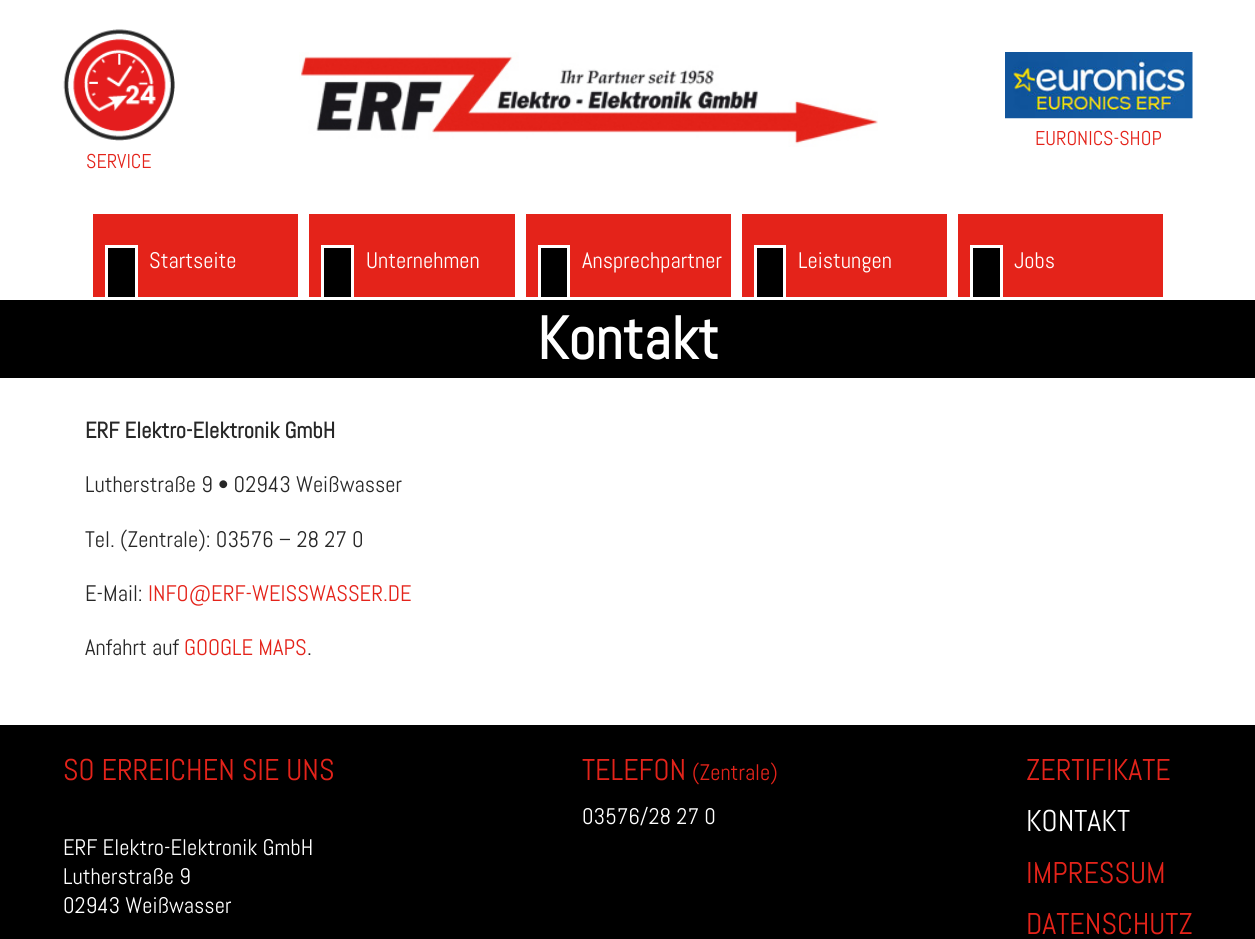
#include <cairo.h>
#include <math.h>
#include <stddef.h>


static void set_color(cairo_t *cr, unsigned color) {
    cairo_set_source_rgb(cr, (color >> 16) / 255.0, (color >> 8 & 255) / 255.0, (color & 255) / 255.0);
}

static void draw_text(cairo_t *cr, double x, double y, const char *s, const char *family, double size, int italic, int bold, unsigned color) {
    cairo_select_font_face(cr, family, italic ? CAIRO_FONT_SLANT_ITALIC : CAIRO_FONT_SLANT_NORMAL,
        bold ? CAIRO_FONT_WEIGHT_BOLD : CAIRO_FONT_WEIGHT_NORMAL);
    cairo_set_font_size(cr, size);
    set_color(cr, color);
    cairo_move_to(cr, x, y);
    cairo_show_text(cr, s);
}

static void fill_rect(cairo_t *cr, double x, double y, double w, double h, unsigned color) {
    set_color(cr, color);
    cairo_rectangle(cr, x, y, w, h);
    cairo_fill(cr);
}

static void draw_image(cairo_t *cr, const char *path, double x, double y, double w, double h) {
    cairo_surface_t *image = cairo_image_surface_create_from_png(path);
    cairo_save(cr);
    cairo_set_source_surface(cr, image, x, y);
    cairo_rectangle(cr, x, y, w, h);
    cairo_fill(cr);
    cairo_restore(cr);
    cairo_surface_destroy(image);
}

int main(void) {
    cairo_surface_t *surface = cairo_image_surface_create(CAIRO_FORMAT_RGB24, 1255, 939);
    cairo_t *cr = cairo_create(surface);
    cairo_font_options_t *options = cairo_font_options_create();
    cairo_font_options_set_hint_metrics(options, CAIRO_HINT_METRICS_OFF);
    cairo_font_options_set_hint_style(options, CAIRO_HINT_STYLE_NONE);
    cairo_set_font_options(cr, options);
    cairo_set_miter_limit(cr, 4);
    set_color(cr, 0xFFFFFF);
    cairo_paint(cr);
    draw_image(cr, "assets/img1.png", 299, 52, 579, 95);
    draw_image(cr, "assets/img2.png", 1005, 52, 188, 67);
    draw_text(cr, 1035, 145, "EURONICS-SHOP", "Abel", 20, 0, 0, 0xE4231A);
    draw_image(cr, "assets/img3.png", 63, 29, 112, 112);
    draw_text(cr, 86, 168, "SERVICE", "Abel", 20, 0, 0, 0xE4231A);
    fill_rect(cr, 93, 214, 205, 83, 0xE4231A);
    set_color(cr, 0x000000);
    cairo_rectangle(cr, 106.5, 246.5, 30, 52);
    cairo_fill_preserve(cr);
    set_color(cr, 0xFFFFFF);
    cairo_set_line_width(cr, 3);
    cairo_stroke(cr);
    draw_text(cr, 149, 268, "Startseite", "Abel", 22.5, 0, 0, 0xFFFFFF);
    fill_rect(cr, 309, 214, 206, 83, 0xE4231A);
    set_color(cr, 0x000000);
    cairo_rectangle(cr, 322.5, 246.5, 30, 52);
    cairo_fill_preserve(cr);
    set_color(cr, 0xFFFFFF);
    cairo_stroke(cr);
    draw_text(cr, 366, 268, "Unternehmen", "Abel", 22.5, 0, 0, 0xFFFFFF);
    fill_rect(cr, 526, 214, 205, 83, 0xE4231A);
    set_color(cr, 0x000000);
    cairo_rectangle(cr, 539.5, 246.5, 29, 52);
    cairo_fill_preserve(cr);
    set_color(cr, 0xFFFFFF);
    cairo_stroke(cr);
    draw_text(cr, 582, 268, "Ansprechpartner", "Abel", 22.5, 0, 0, 0xFFFFFF);
    fill_rect(cr, 742, 214, 205, 83, 0xE4231A);
    set_color(cr, 0x000000);
    cairo_rectangle(cr, 755.5, 246.5, 29, 52);
    cairo_fill_preserve(cr);
    set_color(cr, 0xFFFFFF);
    cairo_stroke(cr);
    draw_text(cr, 798, 268, "Leistungen", "Abel", 22.5, 0, 0, 0xFFFFFF);
    fill_rect(cr, 958, 214, 205, 83, 0xE4231A);
    set_color(cr, 0x000000);
    cairo_rectangle(cr, 971.5, 246.5, 30, 52);
    cairo_fill_preserve(cr);
    set_color(cr, 0xFFFFFF);
    cairo_stroke(cr);
    draw_text(cr, 1014, 268, "Jobs", "Abel", 22.5, 0, 0, 0xFFFFFF);
    fill_rect(cr, 0, 300, 1255, 78, 0x000000);
    draw_text(cr, 537, 359, "Kontakt", "Abel", 60, 0, 1, 0xFFFFFF);
    draw_text(cr, 85, 438, "ERF Elektro-Elektronik GmbH", "Abel", 22.5, 0, 1, 0x272727);
    draw_text(cr, 85, 492, "Lutherstraße 9 • 02943 Weißwasser", "Abel", 22.5, 0, 0, 0x272727);
    draw_text(cr, 85, 547, "Tel. (Zentrale): 03576 – 28 27 0", "Abel", 22.5, 0, 0, 0x272727);
    draw_text(cr, 85, 601, "E-Mail:", "Abel", 22.5, 0, 0, 0x272727);
    draw_text(cr, 148, 601, "INFO@ERF-WEISSWASSER.DE", "Abel", 22.5, 0, 0, 0xE4231A);
    draw_text(cr, 85, 655, "Anfahrt auf", "Abel", 22.5, 0, 0, 0x272727);
    draw_text(cr, 184, 655, "GOOGLE MAPS", "Abel", 22.5, 0, 0, 0xE4231A);
    draw_text(cr, 307, 655, ".", "Abel", 22.5, 0, 0, 0x272727);
    fill_rect(cr, 0, 725, 1255, 214, 0x000000);
    draw_text(cr, 63, 780, "SO ERREICHEN SIE UNS", "Abel", 30, 0, 0, 0xE4231A);
    draw_text(cr, 63, 855, "ERF Elektro-Elektronik GmbH", "Abel", 22.5, 0, 0, 0xFFFFFF);
    draw_text(cr, 63, 884, "Lutherstraße 9", "Abel", 22.5, 0, 0, 0xFFFFFF);
    draw_text(cr, 63, 913, "02943 Weißwasser", "Abel", 22.5, 0, 0, 0xFFFFFF);
    draw_text(cr, 582, 780, "TELEFON", "Abel", 30, 0, 0, 0xE4231A);
    draw_text(cr, 692, 780, "(Zentrale)", "Abel", 22.5, 0, 0, 0xE4231A);
    draw_text(cr, 582, 824, "03576/28 27 0", "Abel", 22.5, 0, 0, 0xFFFFFF);
    draw_text(cr, 1026, 780, "ZERTIFIKATE", "Abel", 30, 0, 0, 0xE4231A);
    draw_text(cr, 1026, 831, "KONTAKT", "Abel", 30, 0, 0, 0xFFFFFF);
    draw_text(cr, 1026, 883, "IMPRESSUM", "Abel", 30, 0, 0, 0xE4231A);
    draw_text(cr, 1026, 934, "DATENSCHUTZ", "Abel", 30, 0, 0, 0xE4231A);
    cairo_surface_write_to_png(surface, "output.png");
    cairo_font_options_destroy(options);
    cairo_destroy(cr);
    cairo_surface_destroy(surface);
    return 0;
}
